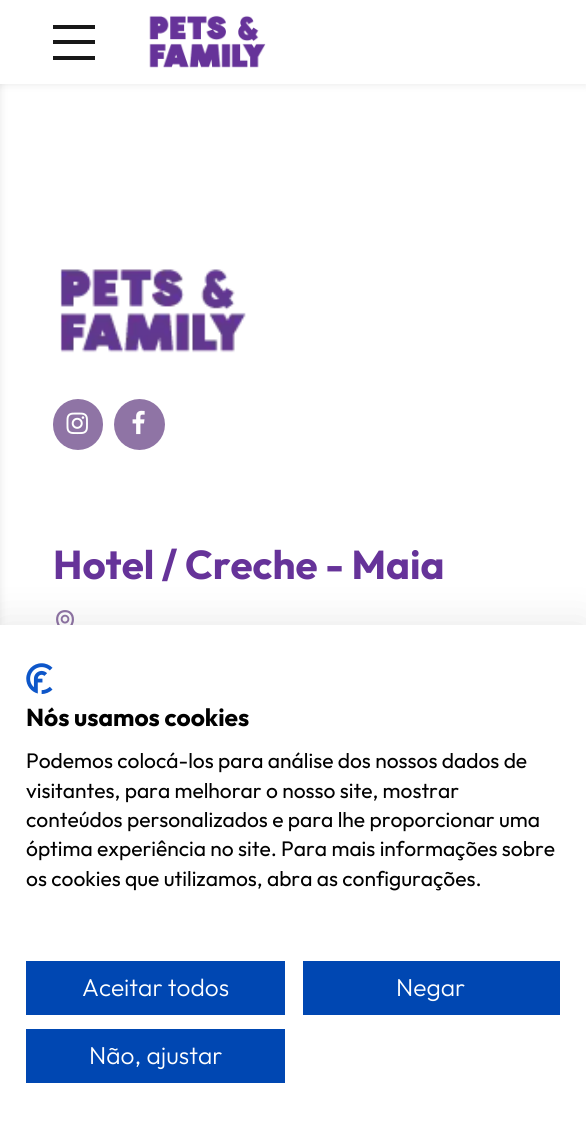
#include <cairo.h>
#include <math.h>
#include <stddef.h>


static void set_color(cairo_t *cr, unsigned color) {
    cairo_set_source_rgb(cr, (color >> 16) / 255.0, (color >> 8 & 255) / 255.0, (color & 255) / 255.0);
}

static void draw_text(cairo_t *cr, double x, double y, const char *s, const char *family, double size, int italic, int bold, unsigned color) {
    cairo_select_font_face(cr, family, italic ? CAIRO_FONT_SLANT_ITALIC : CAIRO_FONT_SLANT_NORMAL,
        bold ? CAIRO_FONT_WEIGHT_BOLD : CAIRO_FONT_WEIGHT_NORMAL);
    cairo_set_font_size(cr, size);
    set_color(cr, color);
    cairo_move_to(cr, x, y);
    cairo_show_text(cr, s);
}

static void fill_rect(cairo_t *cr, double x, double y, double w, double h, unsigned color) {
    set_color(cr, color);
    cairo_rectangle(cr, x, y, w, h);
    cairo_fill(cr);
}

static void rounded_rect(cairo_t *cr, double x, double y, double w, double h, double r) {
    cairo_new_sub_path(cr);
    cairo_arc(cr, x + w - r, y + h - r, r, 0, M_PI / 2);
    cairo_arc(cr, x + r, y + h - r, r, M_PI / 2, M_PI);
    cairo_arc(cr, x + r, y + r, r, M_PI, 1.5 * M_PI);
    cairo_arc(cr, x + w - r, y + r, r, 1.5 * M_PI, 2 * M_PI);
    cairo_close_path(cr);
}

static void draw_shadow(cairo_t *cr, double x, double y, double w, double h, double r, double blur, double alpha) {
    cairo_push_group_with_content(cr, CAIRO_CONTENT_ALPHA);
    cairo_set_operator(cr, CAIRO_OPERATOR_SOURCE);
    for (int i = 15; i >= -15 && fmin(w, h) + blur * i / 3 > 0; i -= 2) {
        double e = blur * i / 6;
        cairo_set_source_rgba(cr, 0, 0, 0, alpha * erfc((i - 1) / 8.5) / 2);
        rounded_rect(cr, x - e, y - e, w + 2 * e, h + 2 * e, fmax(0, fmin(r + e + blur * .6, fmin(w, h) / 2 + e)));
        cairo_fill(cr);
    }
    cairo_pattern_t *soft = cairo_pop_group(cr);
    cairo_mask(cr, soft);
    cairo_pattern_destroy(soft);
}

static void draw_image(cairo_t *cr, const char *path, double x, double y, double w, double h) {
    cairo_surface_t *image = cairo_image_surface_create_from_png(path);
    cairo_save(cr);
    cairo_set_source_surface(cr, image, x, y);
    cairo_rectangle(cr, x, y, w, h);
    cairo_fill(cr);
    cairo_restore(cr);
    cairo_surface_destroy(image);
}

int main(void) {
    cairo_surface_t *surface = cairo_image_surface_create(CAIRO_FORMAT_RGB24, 586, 1130);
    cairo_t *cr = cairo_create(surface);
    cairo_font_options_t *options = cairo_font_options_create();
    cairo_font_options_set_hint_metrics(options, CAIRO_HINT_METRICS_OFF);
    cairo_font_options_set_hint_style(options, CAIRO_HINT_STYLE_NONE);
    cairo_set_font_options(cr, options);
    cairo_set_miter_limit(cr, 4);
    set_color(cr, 0xFFFFFF);
    cairo_paint(cr);
    set_color(cr, 0x000000);
    draw_shadow(cr, -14, 0, 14, 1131, 0, 4.5, 0.1);
    draw_shadow(cr, 0, 0, 586, 84, 0, 4.5, 0.1);
    fill_rect(cr, 0, 0, 586, 84, 0xFFFFFF);
    fill_rect(cr, 53, 25, 42, 4, 0x181818);
    fill_rect(cr, 53, 40, 42, 4, 0x181818);
    fill_rect(cr, 53, 56, 42, 4, 0x181818);
    draw_image(cr, "assets/img1.png", 149, 15, 117, 53);
    draw_image(cr, "assets/img2.png", 60, 269, 186, 84);
    rounded_rect(cr, 65.5, 411.5, 25, 26, 12.5);
    set_color(cr, 0x8F74A5);
    cairo_set_line_width(cr, 25);
    cairo_stroke(cr);
    draw_image(cr, "assets/img3.png", 66, 412, 22, 23);
    cairo_arc(cr, 139.5, 424.5, 13, 0, 2 * M_PI);
    cairo_stroke(cr);
    draw_image(cr, "assets/img4.png", 132, 410, 13, 25);
    draw_text(cr, 53, 579, "Hotel / Creche - Maia", "Outfit", 40.25, 0, 1, 0x663399);
    draw_image(cr, "assets/img5.png", 56, 610, 18, 15);
    set_color(cr, 0x000000);
    draw_shadow(cr, 0, 625, 586, 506, 0, 21, 0.1);
    fill_rect(cr, 0, 625, 586, 505, 0xFFFFFF);
    draw_image(cr, "assets/img6.png", 26, 663, 27, 31);
    draw_text(cr, 26, 726, "Nós usamos cookies", "Outfit", 24.5, 0, 1, 0x000000);
    draw_text(cr, 26, 768, "Podemos colocá-los para análise dos nossos dados de", "Outfit", 21, 0, 0, 0x000000);
    draw_text(cr, 26, 798, "visitantes, para melhorar o nosso site, mostrar", "Outfit", 21, 0, 0, 0x000000);
    draw_text(cr, 26, 827, "conteúdos personalizados e para lhe proporcionar uma", "Outfit", 21, 0, 0, 0x000000);
    draw_text(cr, 26, 856, "óptima experiência no site. Para mais informações sobre", "Outfit", 21, 0, 0, 0x000000);
    draw_text(cr, 26, 886, "os cookies que utilizamos, abra as configurações.", "Outfit", 21, 0, 0, 0x000000);
    fill_rect(cr, 26, 961, 259, 54, 0x0047B2);
    draw_text(cr, 82, 996, "Aceitar todos", "Outfit Light", 24.5, 0, 0, 0xFFFFFF);
    fill_rect(cr, 303, 961, 257, 54, 0x0047B2);
    draw_text(cr, 396, 996, "Negar", "Outfit Light", 24.5, 0, 0, 0xFFFFFF);
    fill_rect(cr, 26, 1029, 259, 54, 0x0047B2);
    draw_text(cr, 89, 1064, "Não, ajustar", "Outfit Light", 24.5, 0, 0, 0xFFFFFF);
    cairo_surface_write_to_png(surface, "output.png");
    cairo_font_options_destroy(options);
    cairo_destroy(cr);
    cairo_surface_destroy(surface);
    return 0;
}
